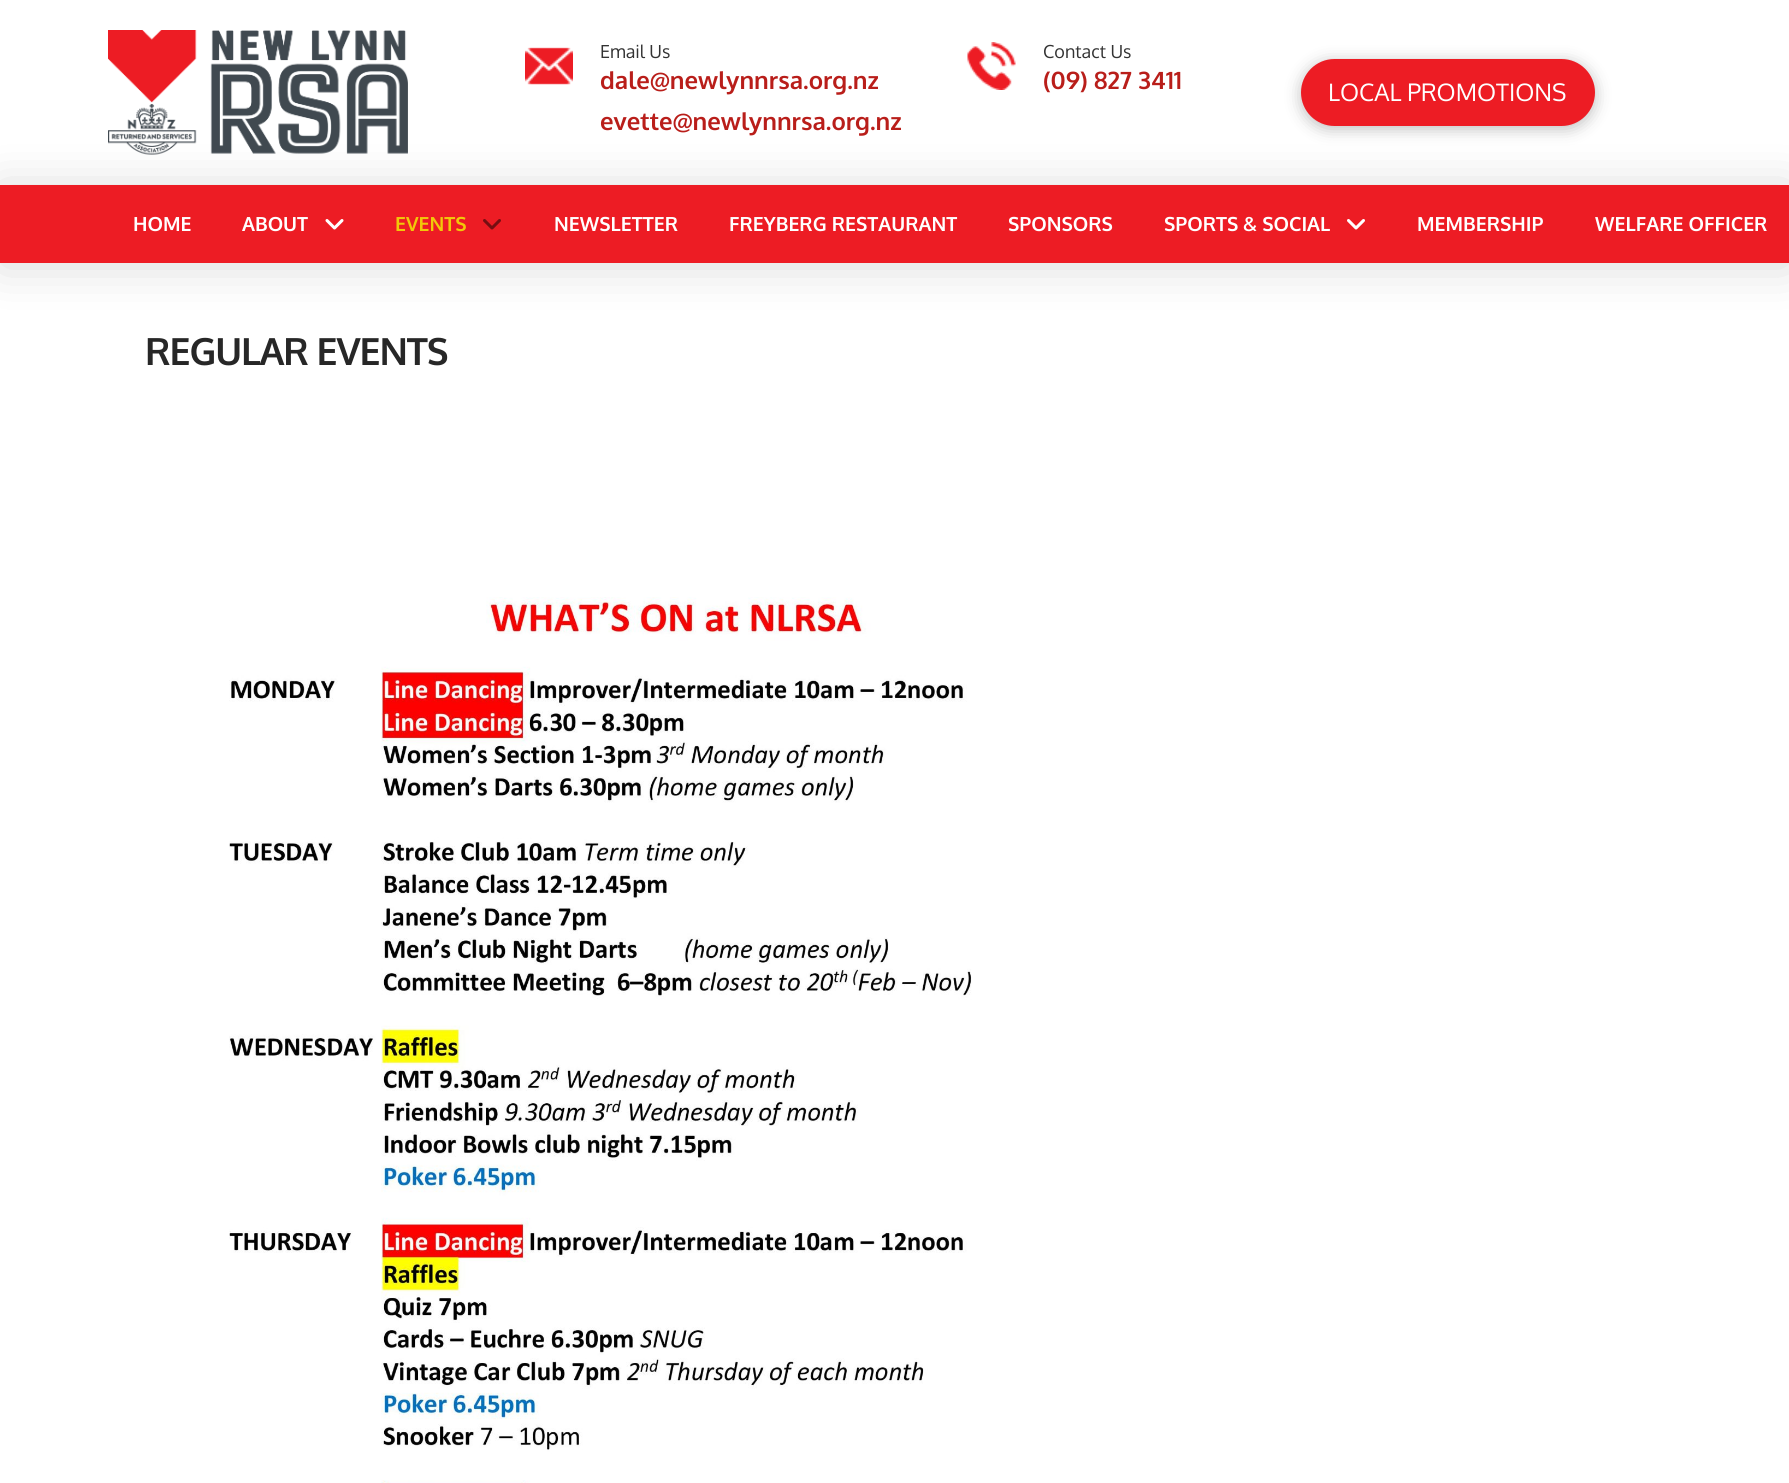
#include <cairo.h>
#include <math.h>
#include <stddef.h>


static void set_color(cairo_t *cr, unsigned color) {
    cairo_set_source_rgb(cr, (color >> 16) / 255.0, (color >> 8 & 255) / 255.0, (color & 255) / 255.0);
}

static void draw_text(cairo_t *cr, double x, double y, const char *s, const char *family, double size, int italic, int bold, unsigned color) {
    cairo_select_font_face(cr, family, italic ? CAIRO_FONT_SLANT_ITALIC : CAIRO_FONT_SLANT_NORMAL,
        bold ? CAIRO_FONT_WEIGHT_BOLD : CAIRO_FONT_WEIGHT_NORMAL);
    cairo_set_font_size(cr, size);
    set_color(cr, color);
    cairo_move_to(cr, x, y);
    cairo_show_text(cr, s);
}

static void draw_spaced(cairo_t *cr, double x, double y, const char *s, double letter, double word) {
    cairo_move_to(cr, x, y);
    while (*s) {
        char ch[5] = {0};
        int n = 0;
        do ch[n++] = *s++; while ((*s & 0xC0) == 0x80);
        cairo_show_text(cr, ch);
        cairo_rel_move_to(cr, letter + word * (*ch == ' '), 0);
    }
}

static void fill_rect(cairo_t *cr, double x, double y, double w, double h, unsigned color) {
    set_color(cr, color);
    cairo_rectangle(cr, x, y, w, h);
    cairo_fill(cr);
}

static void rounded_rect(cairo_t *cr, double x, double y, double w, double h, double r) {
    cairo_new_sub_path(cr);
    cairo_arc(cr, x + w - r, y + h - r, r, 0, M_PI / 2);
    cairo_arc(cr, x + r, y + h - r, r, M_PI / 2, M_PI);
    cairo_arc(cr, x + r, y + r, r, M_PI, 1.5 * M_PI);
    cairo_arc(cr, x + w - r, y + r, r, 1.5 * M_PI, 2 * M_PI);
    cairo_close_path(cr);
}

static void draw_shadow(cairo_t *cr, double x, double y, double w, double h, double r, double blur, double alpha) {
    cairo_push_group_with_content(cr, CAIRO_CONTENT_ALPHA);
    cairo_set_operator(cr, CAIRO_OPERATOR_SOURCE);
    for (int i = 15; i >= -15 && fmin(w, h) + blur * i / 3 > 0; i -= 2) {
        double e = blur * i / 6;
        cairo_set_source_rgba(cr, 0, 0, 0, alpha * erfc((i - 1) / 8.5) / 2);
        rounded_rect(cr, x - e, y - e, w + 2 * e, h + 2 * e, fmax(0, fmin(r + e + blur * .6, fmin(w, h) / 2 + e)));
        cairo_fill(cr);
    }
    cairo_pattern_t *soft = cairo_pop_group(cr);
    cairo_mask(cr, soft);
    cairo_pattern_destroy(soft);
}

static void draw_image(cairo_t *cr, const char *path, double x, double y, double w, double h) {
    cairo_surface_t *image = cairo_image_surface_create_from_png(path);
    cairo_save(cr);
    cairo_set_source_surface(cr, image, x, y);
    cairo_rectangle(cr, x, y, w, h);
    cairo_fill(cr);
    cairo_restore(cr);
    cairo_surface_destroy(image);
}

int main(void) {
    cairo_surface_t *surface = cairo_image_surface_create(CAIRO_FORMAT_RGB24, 1789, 1483);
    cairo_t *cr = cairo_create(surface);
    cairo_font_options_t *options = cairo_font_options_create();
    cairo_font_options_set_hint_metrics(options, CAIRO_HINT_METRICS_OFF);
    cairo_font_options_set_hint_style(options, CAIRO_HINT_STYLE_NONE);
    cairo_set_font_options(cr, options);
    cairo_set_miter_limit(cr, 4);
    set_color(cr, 0xFFFFFF);
    cairo_paint(cr);
    draw_image(cr, "assets/img1.png", 108, 30, 300, 125);
    draw_image(cr, "assets/img2.png", 525, 47, 48, 38);
    draw_text(cr, 600, 58, "Email Us", "Oxygen", 18, 0, 0, 0x333333);
    draw_text(cr, 600, 89, "dale@newlynnrsa.org.nz", "Oxygen", 24, 0, 1, 0xB91E1A);
    draw_text(cr, 600, 130, "evette@newlynnrsa.org.nz", "Oxygen", 24, 0, 1, 0xB91E1A);
    draw_image(cr, "assets/img3.png", 967, 42, 49, 48);
    draw_text(cr, 1043, 58, "Contact Us", "Oxygen", 18, 0, 0, 0x333333);
    draw_text(cr, 1043, 89, "(09) 827 3411", "Oxygen", 24, 0, 1, 0xB91E1A);
    set_color(cr, 0x000000);
    draw_shadow(cr, 1301, 62, 294, 67, 33.5, 8, 0.25);
    set_color(cr, 0xED1C24);
    rounded_rect(cr, 1301, 59, 294, 67, 33.5);
    cairo_fill(cr);
    draw_text(cr, 1328, 101, "LOCAL PROMOTIONS", "Oxygen", 24, 0, 0, 0xFFFFFF);
    set_color(cr, 0x000000);
    draw_shadow(cr, 0, 188, 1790, 78, 0, 24, 0.15);
    fill_rect(cr, 0, 185, 1789, 78, 0xED1C24);
    draw_text(cr, 133, 231, "HOME", "Oxygen", 19.5, 0, 1, 0xFFFFFF);
    draw_text(cr, 242, 231, "ABOUT", "Oxygen", 19.5, 0, 1, 0xFFFFFF);
    draw_image(cr, "assets/img4.png", 325, 219, 19, 11);
    draw_text(cr, 395, 231, "EVENTS", "Oxygen", 19.5, 0, 1, 0xF1C809);
    draw_image(cr, "assets/img5.png", 483, 219, 18, 11);
    draw_text(cr, 554, 231, "NEWSLETTER", "Oxygen", 19.5, 0, 1, 0xFFFFFF);
    draw_text(cr, 729, 231, "FREYBERG RESTAURANT", "Oxygen", 19.5, 0, 1, 0xFFFFFF);
    draw_text(cr, 1008, 231, "SPONSORS", "Oxygen", 19.5, 0, 1, 0xFFFFFF);
    draw_text(cr, 1164, 231, "SPORTS & SOCIAL", "Oxygen", 19.5, 0, 1, 0xFFFFFF);
    draw_image(cr, "assets/img6.png", 1347, 219, 18, 11);
    draw_text(cr, 1417, 231, "MEMBERSHIP", "Oxygen", 19.5, 0, 1, 0xFFFFFF);
    draw_text(cr, 1595, 231, "WELFARE OFFICER", "Oxygen", 19.5, 0, 1, 0xFFFFFF);
    cairo_set_font_size(cr, 37.5);
    set_color(cr, 0x272727);
    draw_spaced(cr, 145, 365, "REGULAR EVENTS", -1.1, 0);
    draw_image(cr, "assets/img7.png", 229, 597, 743, 886);
    cairo_surface_write_to_png(surface, "output.png");
    cairo_font_options_destroy(options);
    cairo_destroy(cr);
    cairo_surface_destroy(surface);
    return 0;
}
